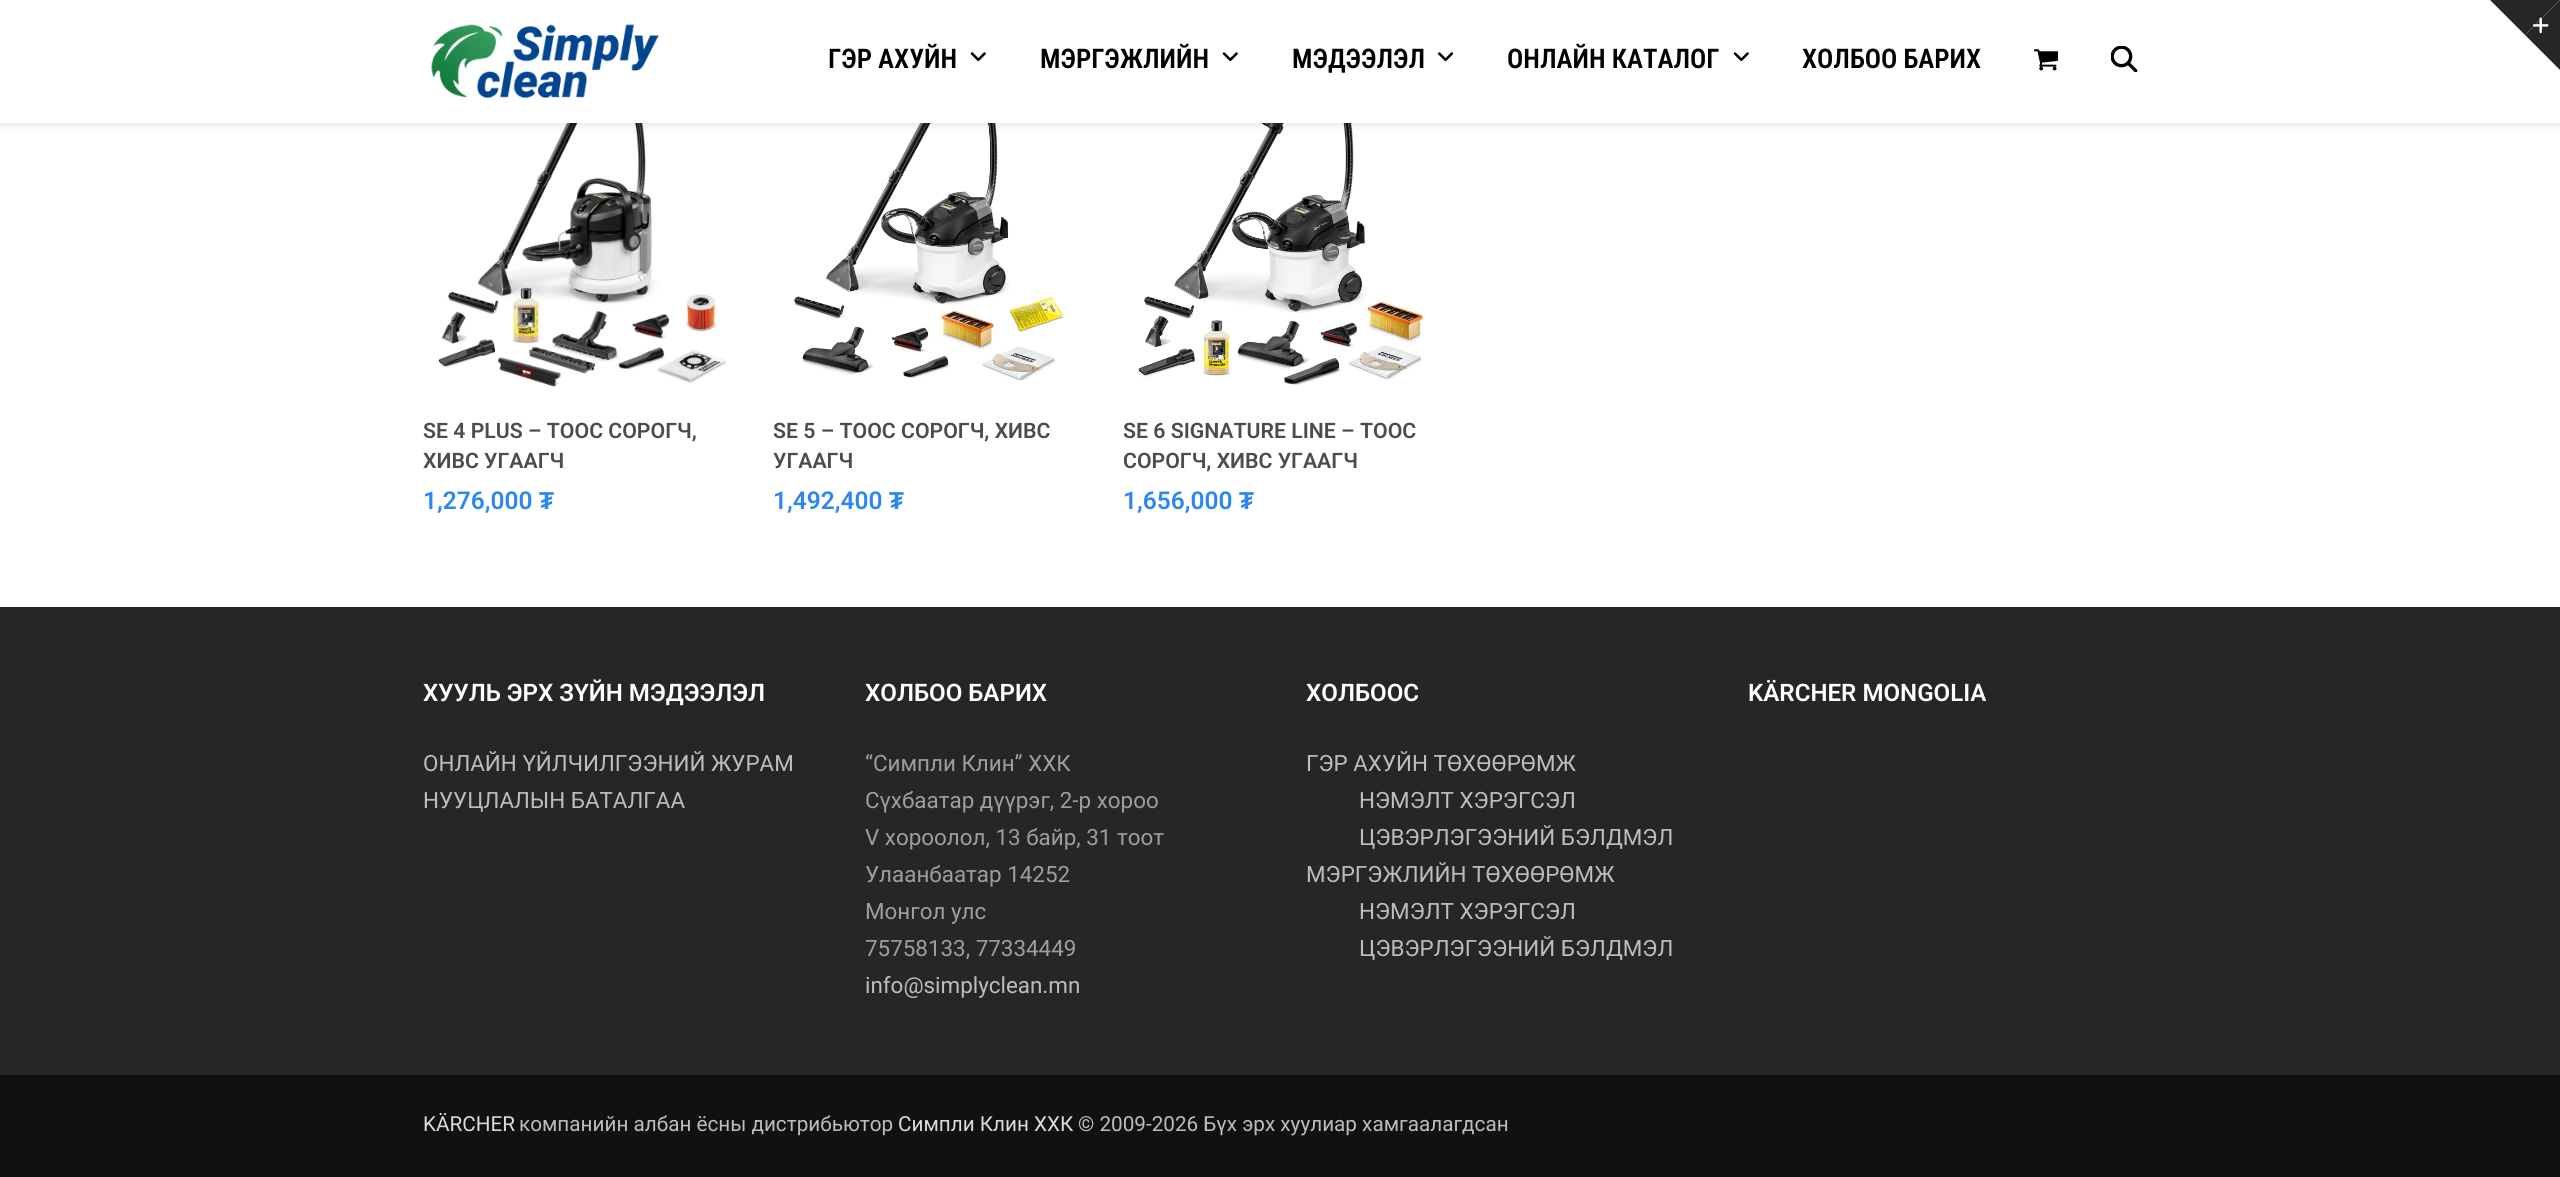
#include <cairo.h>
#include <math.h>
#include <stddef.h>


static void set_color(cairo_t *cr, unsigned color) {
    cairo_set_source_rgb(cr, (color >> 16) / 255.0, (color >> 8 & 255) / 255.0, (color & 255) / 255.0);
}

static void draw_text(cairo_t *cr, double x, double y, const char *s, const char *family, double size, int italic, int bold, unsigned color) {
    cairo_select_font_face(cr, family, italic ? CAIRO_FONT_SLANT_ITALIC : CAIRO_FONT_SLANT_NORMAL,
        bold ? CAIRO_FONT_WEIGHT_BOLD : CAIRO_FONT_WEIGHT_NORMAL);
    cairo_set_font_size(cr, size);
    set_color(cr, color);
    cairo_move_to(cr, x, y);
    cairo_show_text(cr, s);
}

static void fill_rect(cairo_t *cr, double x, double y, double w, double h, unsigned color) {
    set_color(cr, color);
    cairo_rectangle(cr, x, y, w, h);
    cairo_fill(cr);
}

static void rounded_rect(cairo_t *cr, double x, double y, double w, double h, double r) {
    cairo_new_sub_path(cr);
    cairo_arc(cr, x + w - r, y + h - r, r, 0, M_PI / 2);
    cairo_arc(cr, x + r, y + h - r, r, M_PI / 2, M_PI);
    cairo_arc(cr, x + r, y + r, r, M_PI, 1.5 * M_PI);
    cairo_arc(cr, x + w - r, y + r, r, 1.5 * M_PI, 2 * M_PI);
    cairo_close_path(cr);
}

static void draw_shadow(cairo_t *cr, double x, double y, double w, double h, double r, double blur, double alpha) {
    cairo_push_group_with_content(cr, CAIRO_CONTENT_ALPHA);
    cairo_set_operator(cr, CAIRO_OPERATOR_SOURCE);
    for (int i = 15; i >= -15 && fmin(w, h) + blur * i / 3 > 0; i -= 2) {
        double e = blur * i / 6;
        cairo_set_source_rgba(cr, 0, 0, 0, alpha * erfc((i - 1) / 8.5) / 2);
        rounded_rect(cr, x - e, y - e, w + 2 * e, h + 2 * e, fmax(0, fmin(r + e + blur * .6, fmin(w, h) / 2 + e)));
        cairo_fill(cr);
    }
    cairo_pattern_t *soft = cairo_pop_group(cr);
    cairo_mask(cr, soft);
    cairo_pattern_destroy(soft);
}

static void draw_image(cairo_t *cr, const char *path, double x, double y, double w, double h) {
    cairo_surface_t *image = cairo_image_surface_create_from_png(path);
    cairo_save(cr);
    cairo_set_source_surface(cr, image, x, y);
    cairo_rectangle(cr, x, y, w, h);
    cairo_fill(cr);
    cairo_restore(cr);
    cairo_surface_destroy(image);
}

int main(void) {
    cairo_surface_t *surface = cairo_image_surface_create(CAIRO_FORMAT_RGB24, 2560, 1177);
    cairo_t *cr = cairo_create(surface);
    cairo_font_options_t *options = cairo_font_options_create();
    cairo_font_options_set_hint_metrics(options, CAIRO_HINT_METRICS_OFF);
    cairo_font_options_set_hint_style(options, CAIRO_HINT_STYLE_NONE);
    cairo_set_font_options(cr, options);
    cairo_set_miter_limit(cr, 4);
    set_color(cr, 0xFFFFFF);
    cairo_paint(cr);
    draw_image(cr, "assets/img7.png", 438, 123, 289, 264);
    draw_image(cr, "assets/img8.png", 794, 123, 270, 258);
    draw_image(cr, "assets/img9.png", 1138, 123, 286, 263);
    set_color(cr, 0x000000);
    draw_shadow(cr, 0, 4, 2560, 122, 0, 4.5, 0.1);
    fill_rect(cr, 0, 0, 2560, 123, 0xFFFFFF);
    set_color(cr, 0x262626);
    cairo_new_path(cr);
    cairo_move_to(cr, 2490, 0);
    cairo_line_to(cr, 2560, 0);
    cairo_line_to(cr, 2525, 35);
    cairo_close_path(cr);
    cairo_fill(cr);
    cairo_new_path(cr);
    cairo_move_to(cr, 2560, 0);
    cairo_line_to(cr, 2560, 70);
    cairo_line_to(cr, 2525, 35);
    cairo_close_path(cr);
    cairo_fill(cr);
    draw_image(cr, "assets/img1.png", 2532, 17, 17, 17);
    draw_image(cr, "assets/img2.png", 431, 24, 228, 74);
    draw_text(cr, 828, 68, "ГЭР АХУЙН", "Roboto Condensed SemiBold", 27, 0, 0, 0x000000);
    draw_image(cr, "assets/img3.png", 970, 52, 16, 10);
    draw_text(cr, 1040, 68, "МЭРГЭЖЛИЙН", "Roboto Condensed SemiBold", 27, 0, 0, 0x000000);
    draw_image(cr, "assets/img3.png", 1222, 52, 16, 10);
    draw_text(cr, 1292, 68, "МЭДЭЭЛЭЛ", "Roboto Condensed SemiBold", 27, 0, 0, 0x000000);
    draw_image(cr, "assets/img4.png", 1438, 52, 16, 10);
    draw_text(cr, 1507, 68, "ОНЛАЙН КАТАЛОГ", "Roboto Condensed SemiBold", 27, 0, 0, 0x000000);
    draw_image(cr, "assets/img3.png", 1733, 52, 16, 10);
    draw_text(cr, 1802, 68, "ХОЛБОО БАРИХ", "Roboto Condensed SemiBold", 27, 0, 0, 0x000000);
    draw_image(cr, "assets/img5.png", 2034, 49, 24, 22);
    draw_image(cr, "assets/img6.png", 2111, 46, 27, 26);
    draw_text(cr, 423, 438, "SE 4 PLUS – ТООС СОРОГЧ,", "Roboto SemiBold", 21.25, 0, 0, 0x4C4C4C);
    draw_text(cr, 423, 468, "ХИВС УГААГЧ", "Roboto SemiBold", 21.25, 0, 0, 0x4C4C4C);
    draw_text(cr, 423, 509, "1,276,000", "Roboto SemiBold", 24.5, 0, 0, 0x2C87F0);
    draw_text(cr, 539, 509, "₮", "Liberation Sans", 24.5, 0, 1, 0x2C87F0);
    draw_text(cr, 773, 438, "SE 5 – ТООС СОРОГЧ, ХИВС", "Roboto SemiBold", 21.25, 0, 0, 0x4C4C4C);
    draw_text(cr, 773, 468, "УГААГЧ", "Roboto SemiBold", 21.25, 0, 0, 0x4C4C4C);
    draw_text(cr, 773, 509, "1,492,400", "Roboto SemiBold", 24.5, 0, 0, 0x2C87F0);
    draw_text(cr, 889, 509, "₮", "Liberation Sans", 24.5, 0, 1, 0x2C87F0);
    draw_text(cr, 1123, 438, "SE 6 SIGNATURE LINE – ТООС", "Roboto SemiBold", 21.25, 0, 0, 0x4C4C4C);
    draw_text(cr, 1123, 468, "СОРОГЧ, ХИВС УГААГЧ", "Roboto SemiBold", 21.25, 0, 0, 0x4C4C4C);
    draw_text(cr, 1123, 509, "1,656,000", "Roboto SemiBold", 24.5, 0, 0, 0x2C87F0);
    draw_text(cr, 1239, 509, "₮", "Liberation Sans", 24.5, 0, 1, 0x2C87F0);
    fill_rect(cr, 0, 607, 2560, 468, 0x262626);
    draw_text(cr, 423, 701, "ХУУЛЬ ЭРХ ЗҮЙН МЭДЭЭЛЭЛ", "Roboto SemiBold", 24.1, 0, 0, 0xFFFFFF);
    draw_text(cr, 423, 771, "ОНЛАЙН ҮЙЛЧИЛГЭЭНИЙ ЖУРАМ", "Roboto", 22.4, 0, 0, 0xBDBDBD);
    draw_text(cr, 423, 808, "НУУЦЛАЛЫН БАТАЛГАА", "Roboto", 22.4, 0, 0, 0xBDBDBD);
    draw_text(cr, 865, 701, "ХОЛБОО БАРИХ", "Roboto SemiBold", 24.1, 0, 0, 0xFFFFFF);
    draw_text(cr, 865, 771, "“Симпли Клин” ХХК", "Roboto", 22.4, 0, 0, 0x9E9E9E);
    draw_text(cr, 865, 808, "Сүхбаатар дүүрэг, 2-р хороо", "Roboto", 22.4, 0, 0, 0x9E9E9E);
    draw_text(cr, 865, 845, "V хороолол, 13 байр, 31 тоот", "Roboto", 22.4, 0, 0, 0x9E9E9E);
    draw_text(cr, 865, 882, "Улаанбаатар 14252", "Roboto", 22.4, 0, 0, 0x9E9E9E);
    draw_text(cr, 865, 919, "Монгол улс", "Roboto", 22.4, 0, 0, 0x9E9E9E);
    draw_text(cr, 865, 956, "75758133, 77334449", "Roboto", 22.4, 0, 0, 0x9E9E9E);
    draw_text(cr, 865, 993, "info@simplyclean.mn", "Roboto", 22.4, 0, 0, 0xBDBDBD);
    draw_text(cr, 1306, 701, "ХОЛБООС", "Roboto SemiBold", 24.1, 0, 0, 0xFFFFFF);
    draw_text(cr, 1306, 771, "ГЭР АХУЙН ТӨХӨӨРӨМЖ", "Roboto", 22.4, 0, 0, 0xBDBDBD);
    draw_text(cr, 1359, 808, "НЭМЭЛТ ХЭРЭГСЭЛ", "Roboto", 22.4, 0, 0, 0xBDBDBD);
    draw_text(cr, 1359, 845, "ЦЭВЭРЛЭГЭЭНИЙ БЭЛДМЭЛ", "Roboto", 22.4, 0, 0, 0xBDBDBD);
    draw_text(cr, 1306, 882, "МЭРГЭЖЛИЙН ТӨХӨӨРӨМЖ", "Roboto", 22.4, 0, 0, 0xBDBDBD);
    draw_text(cr, 1359, 919, "НЭМЭЛТ ХЭРЭГСЭЛ", "Roboto", 22.4, 0, 0, 0xBDBDBD);
    draw_text(cr, 1359, 956, "ЦЭВЭРЛЭГЭЭНИЙ БЭЛДМЭЛ", "Roboto", 22.4, 0, 0, 0xBDBDBD);
    draw_text(cr, 1748, 701, "KÄRCHER MONGOLIA", "Roboto SemiBold", 24.1, 0, 0, 0xFFFFFF);
    fill_rect(cr, 0, 1075, 2560, 102, 0x111111);
    draw_text(cr, 423, 1131, "KÄRCHER", "Roboto", 20.7, 0, 0, 0xDCDCDC);
    draw_text(cr, 519, 1131, "компанийн албан ёсны дистрибьютор", "Roboto", 20.7, 0, 0, 0xBDBDBD);
    draw_text(cr, 898, 1131, "Симпли Клин ХХК", "Roboto", 20.7, 0, 0, 0xDCDCDC);
    draw_text(cr, 1078, 1131, "© 2009-2026 Бүх эрх хуулиар хамгаалагдсан", "Roboto", 20.7, 0, 0, 0xBDBDBD);
    cairo_surface_write_to_png(surface, "output.png");
    cairo_font_options_destroy(options);
    cairo_destroy(cr);
    cairo_surface_destroy(surface);
    return 0;
}
